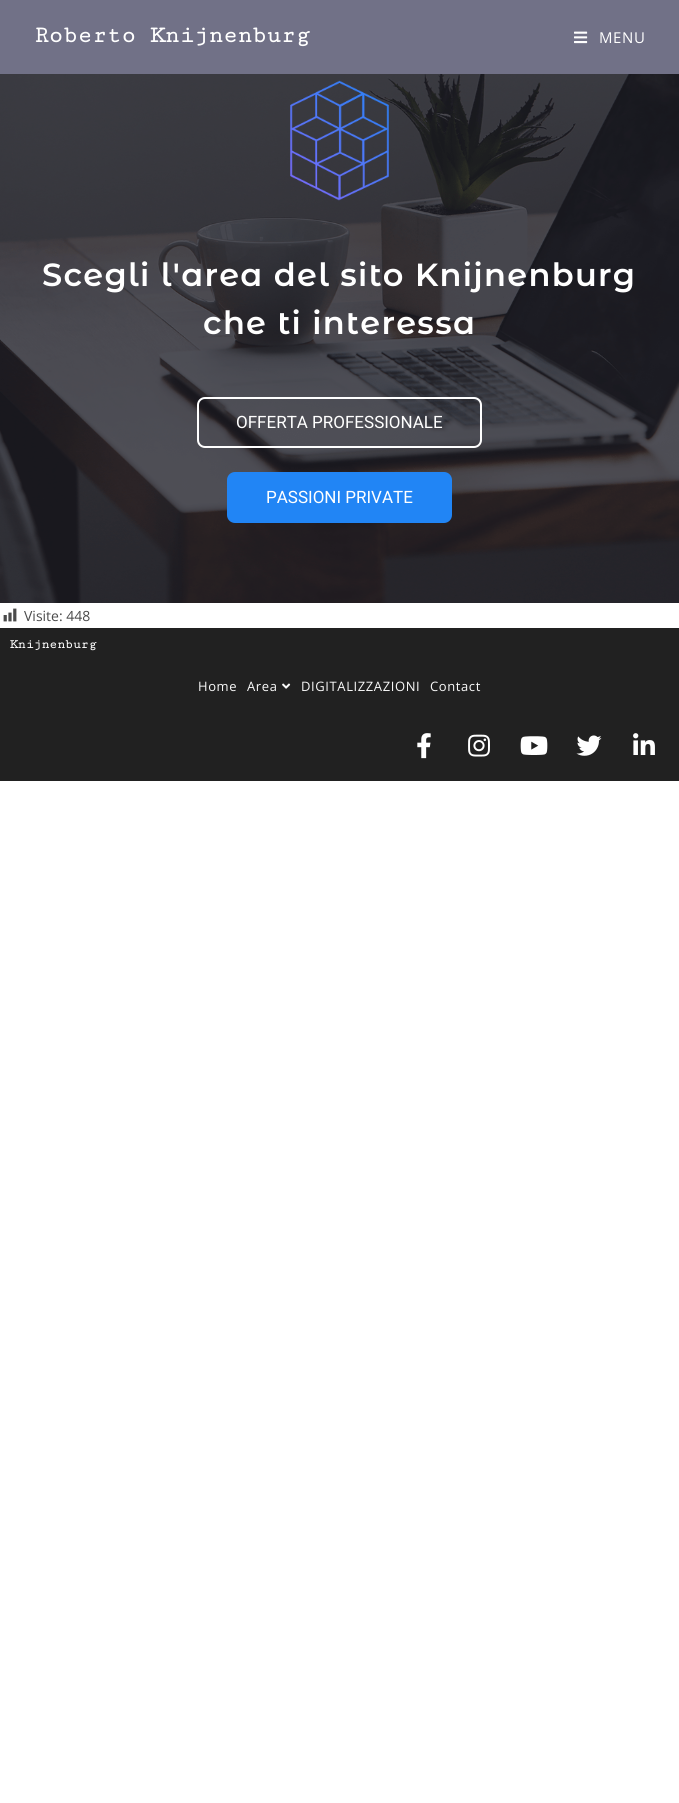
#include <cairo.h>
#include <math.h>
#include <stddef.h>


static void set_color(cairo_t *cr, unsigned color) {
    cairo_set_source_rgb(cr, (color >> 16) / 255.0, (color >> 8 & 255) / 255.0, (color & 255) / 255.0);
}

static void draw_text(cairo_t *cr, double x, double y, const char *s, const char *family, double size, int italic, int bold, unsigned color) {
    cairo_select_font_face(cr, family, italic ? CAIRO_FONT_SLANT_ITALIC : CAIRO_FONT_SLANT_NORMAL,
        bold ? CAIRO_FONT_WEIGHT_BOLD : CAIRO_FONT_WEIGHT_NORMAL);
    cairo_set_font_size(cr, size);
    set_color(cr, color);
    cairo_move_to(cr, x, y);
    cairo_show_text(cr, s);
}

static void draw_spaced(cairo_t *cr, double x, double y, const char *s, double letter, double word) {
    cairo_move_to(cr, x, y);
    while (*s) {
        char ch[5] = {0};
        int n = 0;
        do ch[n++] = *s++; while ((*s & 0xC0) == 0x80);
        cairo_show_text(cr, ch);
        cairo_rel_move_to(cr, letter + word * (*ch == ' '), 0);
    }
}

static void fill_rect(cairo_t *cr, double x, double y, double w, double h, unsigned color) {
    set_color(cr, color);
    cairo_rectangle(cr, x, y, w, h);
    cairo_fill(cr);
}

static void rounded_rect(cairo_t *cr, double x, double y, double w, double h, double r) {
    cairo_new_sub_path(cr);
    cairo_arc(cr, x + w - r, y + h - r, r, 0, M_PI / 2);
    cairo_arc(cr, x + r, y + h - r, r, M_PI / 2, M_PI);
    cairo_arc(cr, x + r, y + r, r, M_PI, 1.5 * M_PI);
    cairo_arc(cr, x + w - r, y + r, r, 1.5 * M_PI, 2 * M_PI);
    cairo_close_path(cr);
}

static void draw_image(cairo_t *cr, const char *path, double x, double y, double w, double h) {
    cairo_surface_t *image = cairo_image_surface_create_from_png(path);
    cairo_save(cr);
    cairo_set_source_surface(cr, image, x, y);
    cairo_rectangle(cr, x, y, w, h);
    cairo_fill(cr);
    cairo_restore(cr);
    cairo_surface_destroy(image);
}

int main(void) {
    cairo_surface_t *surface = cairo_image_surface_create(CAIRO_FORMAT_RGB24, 679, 1803);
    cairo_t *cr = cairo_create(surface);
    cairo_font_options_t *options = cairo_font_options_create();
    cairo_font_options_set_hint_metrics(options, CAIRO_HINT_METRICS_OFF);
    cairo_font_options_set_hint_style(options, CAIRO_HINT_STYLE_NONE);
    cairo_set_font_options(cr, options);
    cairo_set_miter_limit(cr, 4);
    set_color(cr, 0xFFFFFF);
    cairo_paint(cr);
    fill_rect(cr, 0, 0, 679, 74, 0x717187);
    draw_text(cr, 34, 42, "Roberto Knijnenburg", "Cutive Mono", 24, 0, 1, 0xFFFFFF);
    draw_image(cr, "assets/img1.png", 574, 31, 14, 13);
    cairo_select_font_face(cr, "Open Sans", CAIRO_FONT_SLANT_NORMAL, CAIRO_FONT_WEIGHT_NORMAL);
    cairo_set_font_size(cr, 15);
    draw_spaced(cr, 599, 43, "MENU", 0.6, 0);
    draw_image(cr, "assets/img2.png", 0, 74, 679, 529);
    draw_image(cr, "assets/img3.png", 290, 80, 99, 121);
    cairo_select_font_face(cr, "Montserrat Alternates SemiBold", CAIRO_FONT_SLANT_NORMAL, CAIRO_FONT_WEIGHT_NORMAL);
    cairo_set_font_size(cr, 32);
    draw_spaced(cr, 42, 286, "Scegli l'area del sito Knijnenburg", 1.3, 0);
    draw_spaced(cr, 203, 334, "che ti interessa", 1.3, 0);
    rounded_rect(cr, 198, 398, 283, 49, 7);
    cairo_stroke(cr);
    draw_text(cr, 236, 428, "OFFERTA PROFESSIONALE", "Roboto", 17, 0, 0, 0xFFFFFF);
    set_color(cr, 0x2185F5);
    rounded_rect(cr, 228, 473, 223, 49, 7);
    cairo_fill_preserve(cr);
    cairo_stroke(cr);
    draw_text(cr, 266, 503, "PASSIONI PRIVATE", "Roboto", 17, 0, 0, 0xFFFFFF);
    draw_image(cr, "assets/img4.png", 3, 608, 14, 14);
    draw_text(cr, 24, 621, "Visite: 448", "Open Sans", 14, 0, 0, 0x4A4A4A);
    fill_rect(cr, 0, 628, 679, 153, 0x212121);
    draw_text(cr, 10, 648, "Knijnenburg", "Cutive Mono", 13, 0, 1, 0xFFFFFF);
    cairo_select_font_face(cr, "Open Sans", CAIRO_FONT_SLANT_NORMAL, CAIRO_FONT_WEIGHT_NORMAL);
    set_color(cr, 0xF9F9F9);
    draw_spaced(cr, 198, 691, "Home", 0.6, 0);
    draw_spaced(cr, 247, 691, "Area", 0.6, 0);
    draw_image(cr, "assets/img5.png", 282, 683, 9, 6);
    draw_spaced(cr, 301, 691, "DIGITALIZZAZIONI", 0.6, 0);
    draw_spaced(cr, 430, 691, "Contact", 0.6, 0);
    draw_image(cr, "assets/img6.png", 417, 733, 14, 26);
    draw_image(cr, "assets/img7.png", 468, 734, 22, 23);
    draw_image(cr, "assets/img8.png", 520, 736, 28, 19);
    draw_image(cr, "assets/img9.png", 576, 735, 26, 21);
    draw_image(cr, "assets/img10.png", 633, 733, 22, 22);
    cairo_surface_write_to_png(surface, "output.png");
    cairo_font_options_destroy(options);
    cairo_destroy(cr);
    cairo_surface_destroy(surface);
    return 0;
}
